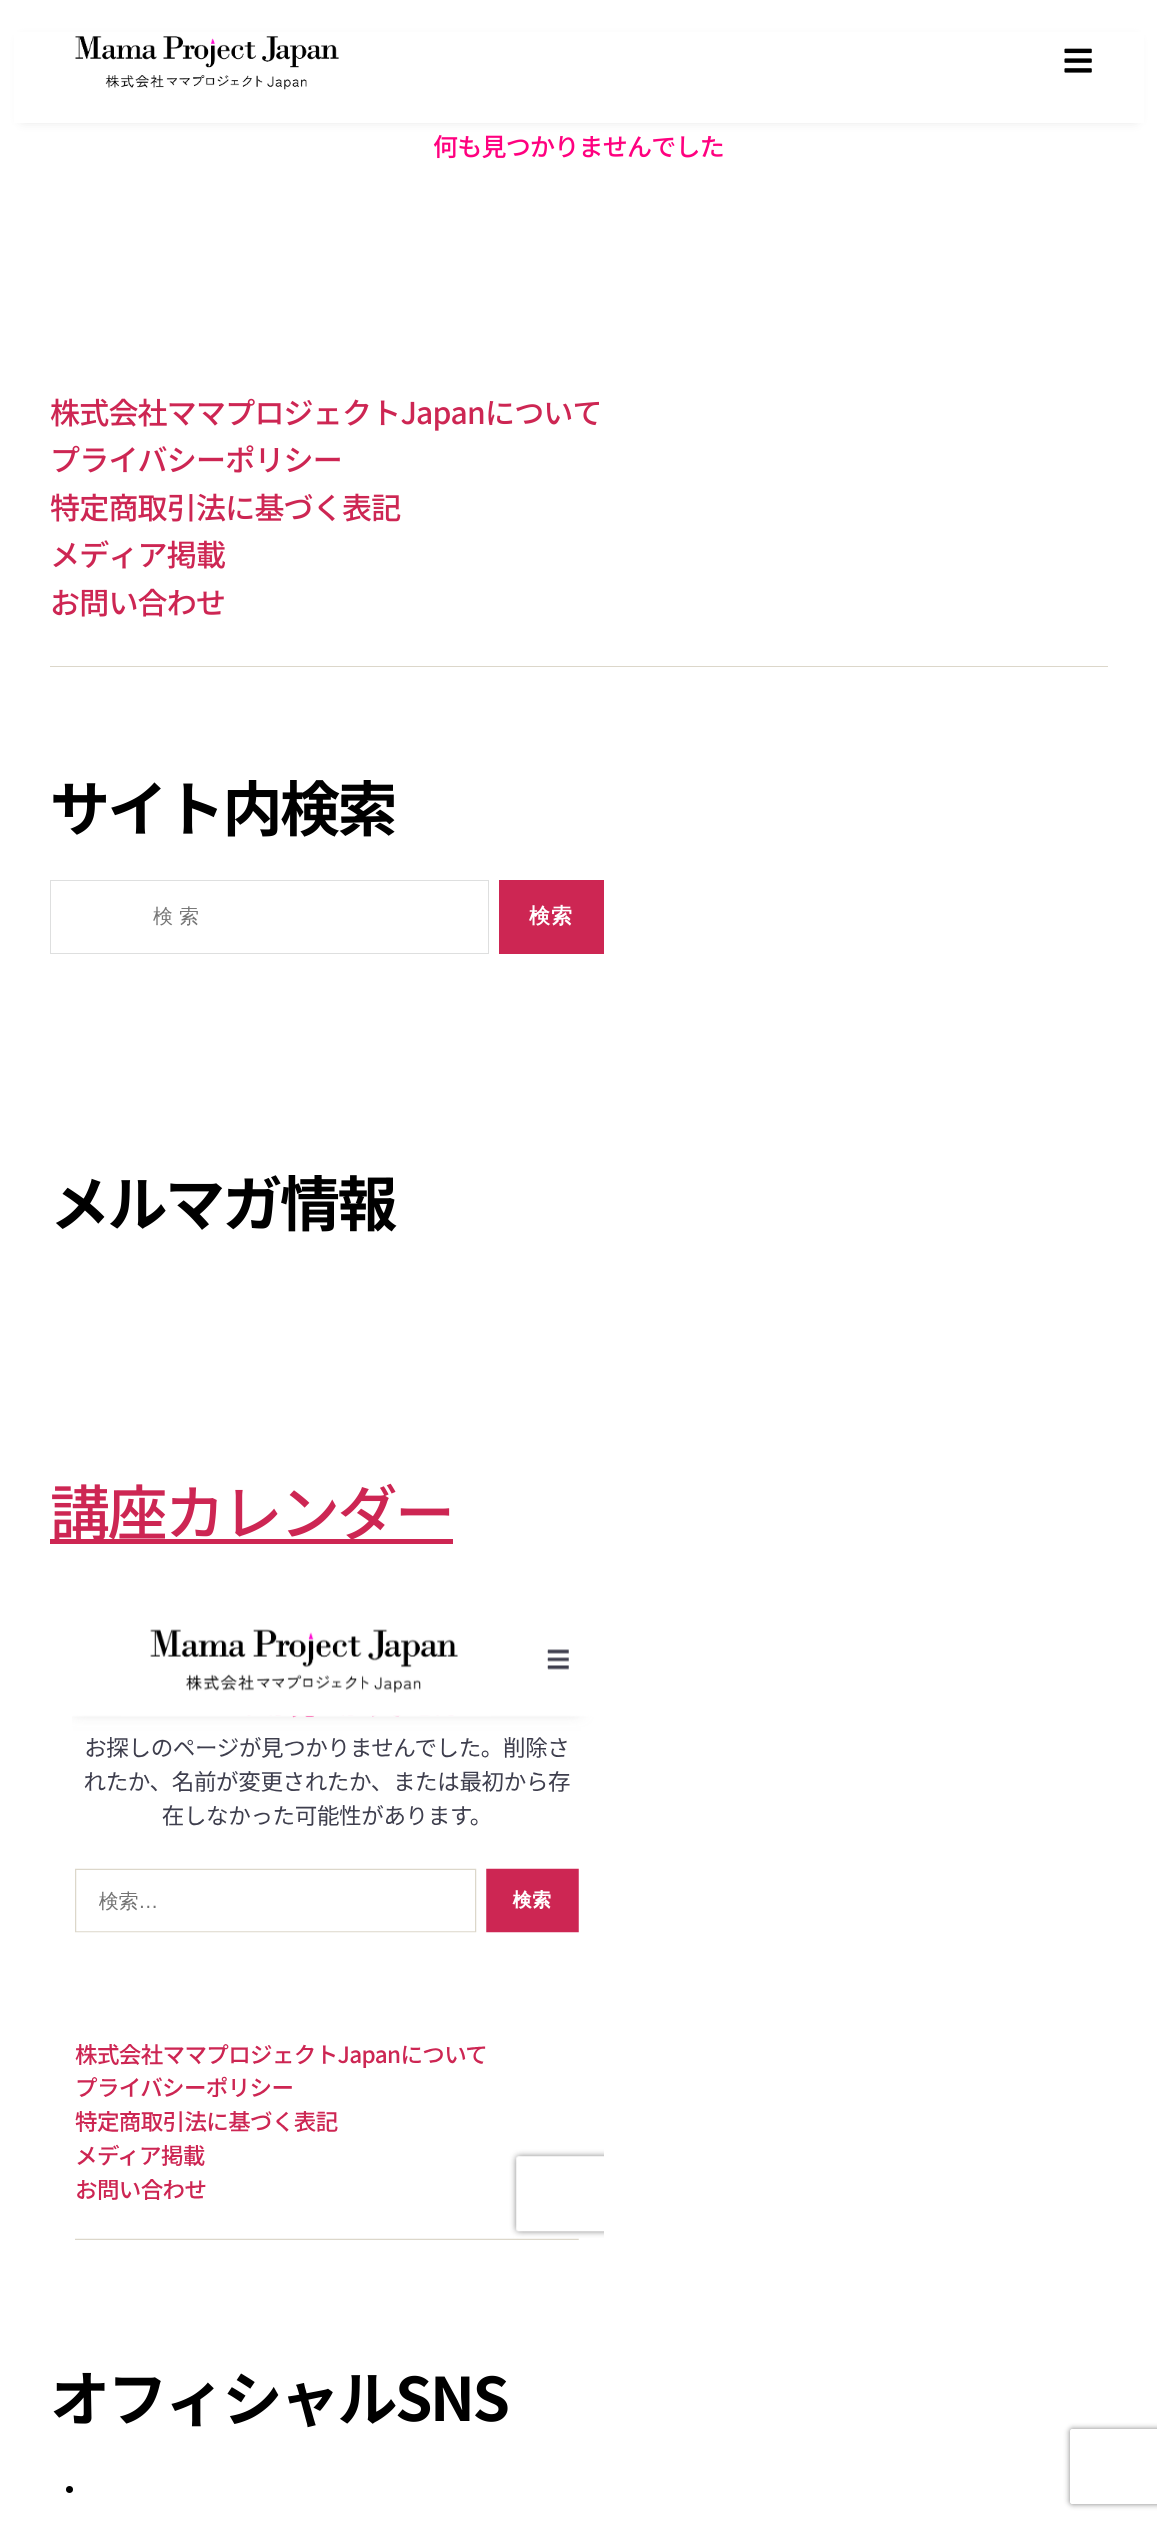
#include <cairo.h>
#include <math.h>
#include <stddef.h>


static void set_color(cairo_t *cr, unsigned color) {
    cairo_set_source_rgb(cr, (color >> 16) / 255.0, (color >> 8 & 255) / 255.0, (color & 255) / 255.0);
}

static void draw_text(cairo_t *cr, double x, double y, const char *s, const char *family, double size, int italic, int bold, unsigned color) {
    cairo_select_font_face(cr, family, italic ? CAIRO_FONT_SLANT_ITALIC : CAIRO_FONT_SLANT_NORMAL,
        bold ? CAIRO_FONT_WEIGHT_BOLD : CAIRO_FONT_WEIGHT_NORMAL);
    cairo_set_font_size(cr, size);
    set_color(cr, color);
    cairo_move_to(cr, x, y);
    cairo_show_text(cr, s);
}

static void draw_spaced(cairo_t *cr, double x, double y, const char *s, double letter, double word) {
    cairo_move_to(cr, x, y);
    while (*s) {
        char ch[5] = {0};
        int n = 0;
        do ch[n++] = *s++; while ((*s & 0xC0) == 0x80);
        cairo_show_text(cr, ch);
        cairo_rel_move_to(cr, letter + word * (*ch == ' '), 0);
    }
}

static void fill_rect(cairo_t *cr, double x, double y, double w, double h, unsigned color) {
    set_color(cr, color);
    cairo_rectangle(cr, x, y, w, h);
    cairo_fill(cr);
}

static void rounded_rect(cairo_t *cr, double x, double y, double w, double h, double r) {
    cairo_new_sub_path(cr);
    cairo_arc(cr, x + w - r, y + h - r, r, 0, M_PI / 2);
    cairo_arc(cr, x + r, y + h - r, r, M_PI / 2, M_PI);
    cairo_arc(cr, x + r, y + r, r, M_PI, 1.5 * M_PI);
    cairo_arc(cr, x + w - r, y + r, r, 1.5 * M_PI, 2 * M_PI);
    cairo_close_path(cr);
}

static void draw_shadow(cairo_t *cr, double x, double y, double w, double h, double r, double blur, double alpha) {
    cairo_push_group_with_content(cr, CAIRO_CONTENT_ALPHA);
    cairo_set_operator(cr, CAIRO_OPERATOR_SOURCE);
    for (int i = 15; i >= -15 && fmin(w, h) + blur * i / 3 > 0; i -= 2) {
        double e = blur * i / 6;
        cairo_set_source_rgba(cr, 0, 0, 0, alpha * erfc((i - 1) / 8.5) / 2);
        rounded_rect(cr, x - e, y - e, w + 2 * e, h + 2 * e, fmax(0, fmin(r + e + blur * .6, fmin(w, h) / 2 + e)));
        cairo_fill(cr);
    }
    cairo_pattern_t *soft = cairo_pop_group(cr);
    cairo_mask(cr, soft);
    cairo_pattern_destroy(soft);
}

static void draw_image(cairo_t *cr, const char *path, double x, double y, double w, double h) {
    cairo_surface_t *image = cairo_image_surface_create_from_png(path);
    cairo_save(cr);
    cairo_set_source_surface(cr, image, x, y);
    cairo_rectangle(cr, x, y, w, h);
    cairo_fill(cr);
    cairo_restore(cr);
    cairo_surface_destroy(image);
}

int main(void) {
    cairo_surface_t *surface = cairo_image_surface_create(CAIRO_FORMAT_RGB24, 1157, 2521);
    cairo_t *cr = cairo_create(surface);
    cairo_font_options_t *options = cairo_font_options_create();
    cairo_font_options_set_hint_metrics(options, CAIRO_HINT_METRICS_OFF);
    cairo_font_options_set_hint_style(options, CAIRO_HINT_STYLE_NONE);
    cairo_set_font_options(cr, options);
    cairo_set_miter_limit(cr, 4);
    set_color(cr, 0xFFFFFF);
    cairo_paint(cr);
    set_color(cr, 0xABABAB);
    draw_shadow(cr, 23, 41, 1112, 78, 0, 6, 0.5);
    fill_rect(cr, 14, 32, 1130, 91, 0xFFFFFF);
    draw_image(cr, "assets/img1.png", 75, 36, 264, 54);
    draw_image(cr, "assets/img2.png", 1064, 48, 28, 25);
    cairo_select_font_face(cr, "Noto Sans JP Medium", CAIRO_FONT_SLANT_NORMAL, CAIRO_FONT_WEIGHT_NORMAL);
    cairo_set_font_size(cr, 25);
    set_color(cr, 0xFF007F);
    draw_spaced(cr, 433, 156, "何も見つかりませんでした", -0.75, 0);
    fill_rect(cr, 50, 666, 1058, 1, 0xDCD7CA);
    cairo_set_font_size(cr, 30);
    set_color(cr, 0xCD2653);
    draw_spaced(cr, 50, 424, "株式会社ママプロジェクトJapanについて", -0.8, 0);
    draw_spaced(cr, 50, 471, "プライバシーポリシー", -0.8, 0);
    draw_spaced(cr, 50, 519, "特定商取引法に基づく表記", -0.8, 0);
    draw_spaced(cr, 50, 566, "メディア掲載", -0.8, 0);
    draw_spaced(cr, 50, 614, "お問い合わせ", -0.8, 0);
    cairo_select_font_face(cr, "Noto Sans JP", CAIRO_FONT_SLANT_NORMAL, CAIRO_FONT_WEIGHT_BOLD);
    cairo_set_font_size(cr, 60);
    set_color(cr, 0x000000);
    draw_spaced(cr, 50, 831, "サイト内検索", -2.5, 0);
    cairo_rectangle(cr, 50.5, 880.5, 438, 73);
    set_color(cr, 0xDEDFDF);
    cairo_set_line_width(cr, 1);
    cairo_stroke(cr);
    draw_text(cr, 153, 923, "検 索", "WenQuanYi Zen Hei Medium", 20, 0, 0, 0x757575);
    fill_rect(cr, 499, 880, 105, 74, 0xCD2653);
    cairo_select_font_face(cr, "WenQuanYi Zen Hei", CAIRO_FONT_SLANT_NORMAL, CAIRO_FONT_WEIGHT_BOLD);
    cairo_set_font_size(cr, 21);
    set_color(cr, 0xFFFFFF);
    draw_spaced(cr, 529, 923, "検索", 1, 0);
    cairo_select_font_face(cr, "Noto Sans JP", CAIRO_FONT_SLANT_NORMAL, CAIRO_FONT_WEIGHT_BOLD);
    cairo_set_font_size(cr, 60);
    set_color(cr, 0x000000);
    draw_spaced(cr, 50, 1226, "メルマガ情報", -2.5, 0);
    fill_rect(cr, 50, 1539, 403, 5, 0xCD2653);
    cairo_select_font_face(cr, "Noto Sans JP Medium", CAIRO_FONT_SLANT_NORMAL, CAIRO_FONT_WEIGHT_NORMAL);
    draw_spaced(cr, 50, 1535, "講座カレンダー", -2.5, 0);
    draw_image(cr, "assets/img3.png", 72, 1629, 532, 611);
    cairo_select_font_face(cr, "Noto Sans JP", CAIRO_FONT_SLANT_NORMAL, CAIRO_FONT_WEIGHT_BOLD);
    set_color(cr, 0x000000);
    draw_spaced(cr, 50, 2421, "オフィシャルSNS", -2.5, 0);
    cairo_new_path(cr);
    cairo_arc(cr, 69.5, 2489.5, 3.5, 0, 2 * M_PI);
    cairo_fill(cr);
    cairo_save(cr);
    cairo_set_fill_rule(cr, CAIRO_FILL_RULE_EVEN_ODD);
    cairo_new_path(cr);
    cairo_move_to(cr, 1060, 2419);
    cairo_line_to(cr, 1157, 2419);
    cairo_line_to(cr, 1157, 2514);
    cairo_line_to(cr, 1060, 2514);
    cairo_close_path(cr);
    cairo_move_to(cr, 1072.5, 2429);
    cairo_line_to(cr, 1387.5, 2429);
    cairo_curve_to(cr, 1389, 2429, 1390, 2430, 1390, 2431.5);
    cairo_line_to(cr, 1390, 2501.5);
    cairo_curve_to(cr, 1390, 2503, 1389, 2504, 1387.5, 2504);
    cairo_line_to(cr, 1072.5, 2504);
    cairo_curve_to(cr, 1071, 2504, 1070, 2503, 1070, 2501.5);
    cairo_line_to(cr, 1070, 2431.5);
    cairo_curve_to(cr, 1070, 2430, 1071, 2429, 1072.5, 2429);
    cairo_close_path(cr);
    cairo_clip(cr);
    set_color(cr, 0x808080);
    draw_shadow(cr, 1070, 2429, 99, 75, 2.5, 3, 1);
    cairo_restore(cr);
    cairo_surface_write_to_png(surface, "output.png");
    cairo_font_options_destroy(options);
    cairo_destroy(cr);
    cairo_surface_destroy(surface);
    return 0;
}
